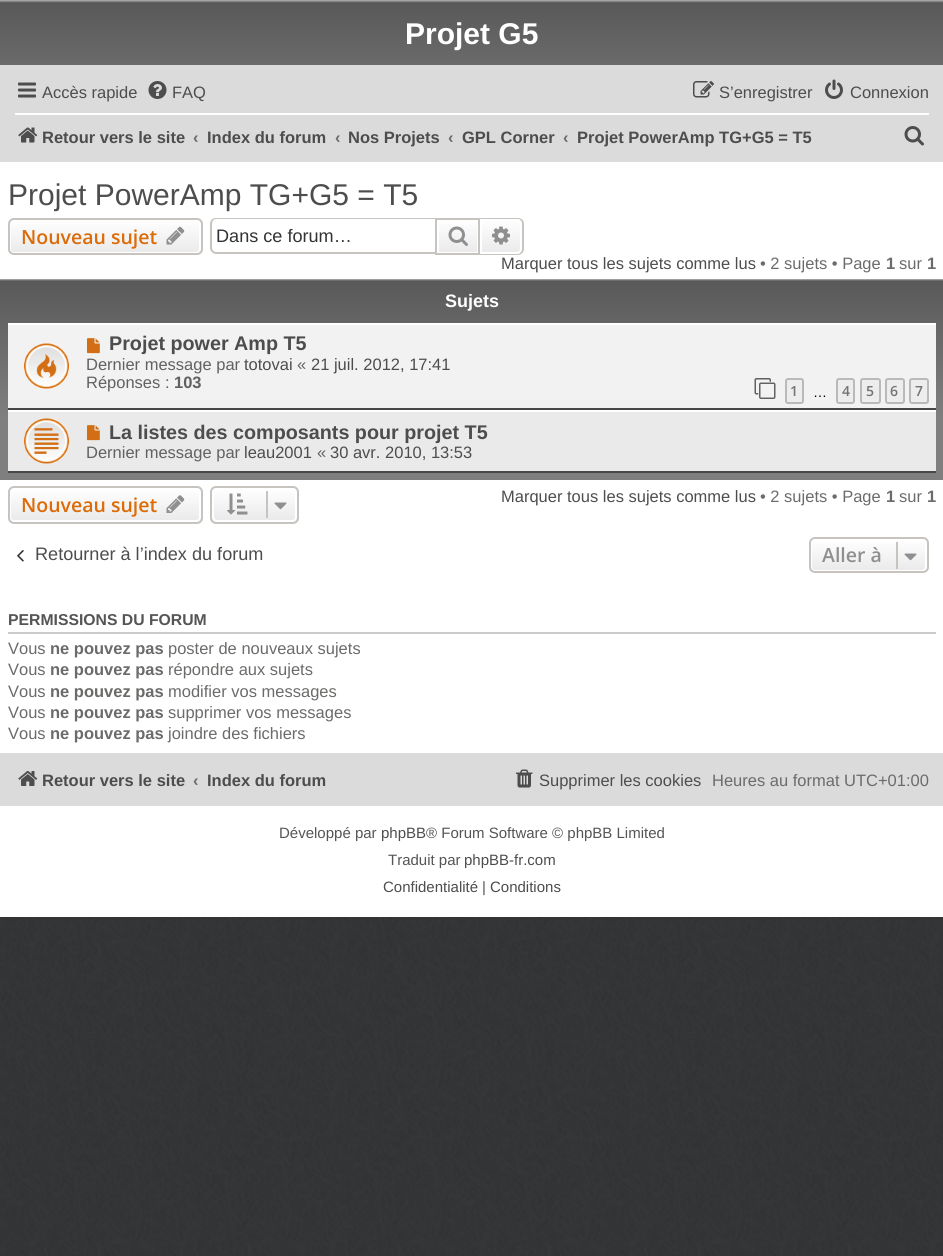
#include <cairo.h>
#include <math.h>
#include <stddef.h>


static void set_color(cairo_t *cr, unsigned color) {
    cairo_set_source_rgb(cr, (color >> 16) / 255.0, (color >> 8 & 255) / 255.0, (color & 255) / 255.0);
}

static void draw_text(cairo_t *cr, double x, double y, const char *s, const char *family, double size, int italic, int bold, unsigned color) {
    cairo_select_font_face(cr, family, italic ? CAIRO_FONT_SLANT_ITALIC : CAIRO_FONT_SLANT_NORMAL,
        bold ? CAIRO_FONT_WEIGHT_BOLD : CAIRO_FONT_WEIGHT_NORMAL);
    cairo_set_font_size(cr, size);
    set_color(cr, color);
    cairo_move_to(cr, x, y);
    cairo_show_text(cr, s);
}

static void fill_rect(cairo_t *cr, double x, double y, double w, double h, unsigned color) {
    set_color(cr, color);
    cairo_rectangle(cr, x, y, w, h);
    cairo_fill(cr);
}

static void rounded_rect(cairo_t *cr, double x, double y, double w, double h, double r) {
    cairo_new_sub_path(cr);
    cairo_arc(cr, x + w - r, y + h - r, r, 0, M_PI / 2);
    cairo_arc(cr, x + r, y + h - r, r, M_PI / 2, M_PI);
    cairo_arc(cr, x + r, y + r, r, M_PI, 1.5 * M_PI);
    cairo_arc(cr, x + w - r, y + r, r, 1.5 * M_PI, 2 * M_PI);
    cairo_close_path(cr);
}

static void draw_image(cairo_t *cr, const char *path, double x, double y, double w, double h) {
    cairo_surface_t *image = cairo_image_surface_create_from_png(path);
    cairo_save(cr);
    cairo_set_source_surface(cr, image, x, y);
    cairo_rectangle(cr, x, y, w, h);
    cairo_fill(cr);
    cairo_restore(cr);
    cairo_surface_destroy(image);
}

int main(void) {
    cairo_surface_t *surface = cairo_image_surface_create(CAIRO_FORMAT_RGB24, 943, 1256);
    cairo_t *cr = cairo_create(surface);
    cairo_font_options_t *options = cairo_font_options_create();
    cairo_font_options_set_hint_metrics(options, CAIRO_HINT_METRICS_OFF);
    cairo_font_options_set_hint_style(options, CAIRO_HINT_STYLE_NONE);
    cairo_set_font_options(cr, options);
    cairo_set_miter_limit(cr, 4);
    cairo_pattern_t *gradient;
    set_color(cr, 0xFFFFFF);
    cairo_paint(cr);
    draw_image(cr, "assets/img1.png", 0, 917, 943, 339);
    gradient = cairo_pattern_create_linear(472, 0, 472, 138);
    cairo_pattern_add_color_stop_rgba(gradient, 0, 0.71, 0.71, 0.71, 1);
    cairo_pattern_add_color_stop_rgba(gradient, 0.02, 0.349, 0.349, 0.349, 1);
    cairo_pattern_add_color_stop_rgba(gradient, 1, 0.498, 0.498, 0.498, 1);
    cairo_set_source(cr, gradient);
    cairo_pattern_destroy(gradient);
    cairo_rectangle(cr, 0, 0, 943, 65);
    cairo_fill(cr);
    draw_text(cr, 405, 44, "Projet G5", "Liberation Sans", 30, 0, 1, 0xFFFFFF);
    fill_rect(cr, 0, 65, 943, 97, 0xDBDBDB);
    draw_image(cr, "assets/img2.png", 18, 82, 18, 16);
    draw_text(cr, 42, 98, "Accès rapide", "Liberation Sans", 16.5, 0, 0, 0x4D4D4D);
    draw_image(cr, "assets/img3.png", 148, 81, 19, 18);
    draw_text(cr, 172, 98, "FAQ", "Liberation Sans", 16.5, 0, 0, 0x4D4D4D);
    draw_image(cr, "assets/img4.png", 693, 81, 21, 17);
    draw_text(cr, 719, 98, "S’enregistrer", "Liberation Sans", 16.5, 0, 0, 0x4D4D4D);
    draw_image(cr, "assets/img5.png", 825, 79, 18, 20);
    draw_text(cr, 850, 98, "Connexion", "Liberation Sans", 16.5, 0, 0, 0x4D4D4D);
    fill_rect(cr, 15, 113, 914, 2, 0xFFFFFF);
    draw_image(cr, "assets/img6.png", 18, 127, 20, 16);
    draw_text(cr, 42, 143, "Retour vers le site", "Liberation Sans", 16.5, 0, 1, 0x4D4D4D);
    draw_text(cr, 193, 143, "‹", "Liberation Sans", 16.5, 0, 1, 0x6B6B6A);
    draw_text(cr, 207, 143, "Index du forum", "Liberation Sans", 16.5, 0, 1, 0x4D4D4D);
    draw_text(cr, 335, 143, "‹", "Liberation Sans", 16.5, 0, 1, 0x6B6B6A);
    draw_text(cr, 348, 143, "Nos Projets", "Liberation Sans", 16.5, 0, 1, 0x4D4D4D);
    draw_text(cr, 448, 143, "‹", "Liberation Sans", 16.5, 0, 1, 0x6B6B6A);
    draw_text(cr, 462, 143, "GPL Corner", "Liberation Sans", 16.5, 0, 1, 0x4D4D4D);
    draw_text(cr, 563, 143, "‹", "Liberation Sans", 16.5, 0, 1, 0x6B6B6A);
    draw_text(cr, 577, 143, "Projet PowerAmp TG+G5 = T5", "Liberation Sans", 16.5, 0, 1, 0x4D4D4D);
    draw_image(cr, "assets/img7.png", 904, 126, 20, 20);
    draw_text(cr, 8, 205, "Projet PowerAmp TG+G5 = T5", "Liberation Sans", 30, 0, 0, 0x4D4D4D);
    cairo_save(cr);
    rounded_rect(cr, 8, 218, 195, 37, 6);
    cairo_clip(cr);
    gradient = cairo_pattern_create_linear(105, 219, 105, 254);
    cairo_pattern_add_color_stop_rgba(gradient, 0, 1, 1, 1, 1);
    cairo_pattern_add_color_stop_rgba(gradient, 1, 0.914, 0.914, 0.914, 1);
    cairo_set_source(cr, gradient);
    cairo_pattern_destroy(gradient);
    cairo_rectangle(cr, 8, 219, 195, 35);
    cairo_fill(cr);
    cairo_restore(cr);
    rounded_rect(cr, 10, 220, 190, 33, 4);
    set_color(cr, 0xFFFFFF);
    cairo_stroke(cr);
    rounded_rect(cr, 9, 219, 193, 35, 5);
    set_color(cr, 0xC7C3BF);
    cairo_stroke(cr);
    draw_text(cr, 21, 244, "Nouveau sujet", "Open Sans SemiBold", 19.5, 0, 0, 0xDC6B08);
    draw_image(cr, "assets/img8.png", 166, 226, 19, 19);
    set_color(cr, 0xC7C3BF);
    cairo_set_fill_rule(cr, CAIRO_FILL_RULE_EVEN_ODD);
    cairo_new_path(cr);
    cairo_move_to(cr, 216, 218);
    cairo_line_to(cr, 435, 218);
    cairo_line_to(cr, 435, 254);
    cairo_line_to(cr, 216, 254);
    cairo_curve_to(cr, 213, 254, 210, 251, 210, 248);
    cairo_line_to(cr, 210, 224);
    cairo_curve_to(cr, 210, 220, 213, 218, 216, 218);
    cairo_close_path(cr);
    cairo_move_to(cr, 216, 219);
    cairo_line_to(cr, 435, 219);
    cairo_line_to(cr, 435, 252);
    cairo_line_to(cr, 216, 252);
    cairo_curve_to(cr, 214, 252, 212, 250, 212, 248);
    cairo_line_to(cr, 212, 224);
    cairo_curve_to(cr, 212, 221, 214, 219, 216, 219);
    cairo_close_path(cr);
    cairo_fill(cr);
    draw_text(cr, 216, 242, "Dans ce forum…", "Liberation Sans", 18.1, 0, 0, 0x333333);
    gradient = cairo_pattern_create_linear(458, 219, 458, 254);
    cairo_pattern_add_color_stop_rgba(gradient, 0, 1, 1, 1, 1);
    cairo_pattern_add_color_stop_rgba(gradient, 1, 0.914, 0.914, 0.914, 1);
    cairo_set_source(cr, gradient);
    cairo_pattern_destroy(gradient);
    cairo_rectangle(cr, 439, 223, 38, 29);
    cairo_fill(cr);
    cairo_rectangle(cr, 436, 219, 43, 35);
    set_color(cr, 0xC7C3BF);
    cairo_stroke(cr);
    draw_image(cr, "assets/img9.png", 448, 226, 20, 20);
    gradient = cairo_pattern_create_linear(501, 219, 501, 254);
    cairo_pattern_add_color_stop_rgba(gradient, 0, 1, 1, 1, 1);
    cairo_pattern_add_color_stop_rgba(gradient, 1, 0.914, 0.914, 0.914, 1);
    cairo_set_source(cr, gradient);
    cairo_pattern_destroy(gradient);
    cairo_new_path(cr);
    cairo_move_to(cr, 481, 220);
    cairo_line_to(cr, 517, 220);
    cairo_curve_to(cr, 519, 220, 521, 222, 521, 224);
    cairo_line_to(cr, 521, 249);
    cairo_curve_to(cr, 521, 251, 519, 253, 517, 253);
    cairo_line_to(cr, 481, 253);
    cairo_close_path(cr);
    cairo_fill_preserve(cr);
    set_color(cr, 0xFFFFFF);
    cairo_stroke(cr);
    set_color(cr, 0xC7C3BF);
    cairo_new_path(cr);
    cairo_move_to(cr, 480, 218);
    cairo_line_to(cr, 518, 218);
    cairo_curve_to(cr, 521, 218, 524, 220, 524, 224);
    cairo_line_to(cr, 524, 249);
    cairo_curve_to(cr, 524, 252, 521, 255, 518, 255);
    cairo_line_to(cr, 480, 255);
    cairo_close_path(cr);
    cairo_move_to(cr, 480, 219);
    cairo_line_to(cr, 518, 219);
    cairo_curve_to(cr, 520, 219, 522, 221, 522, 224);
    cairo_line_to(cr, 522, 249);
    cairo_curve_to(cr, 522, 251, 520, 254, 518, 254);
    cairo_line_to(cr, 480, 254);
    cairo_close_path(cr);
    cairo_fill(cr);
    draw_image(cr, "assets/img10.png", 492, 226, 18, 19);
    draw_text(cr, 501, 269, "Marquer tous les sujets comme lus", "Liberation Sans", 16.5, 0, 0, 0x4D4D4D);
    draw_text(cr, 760, 269, "• 2 sujets • Page", "Liberation Sans", 16.5, 0, 0, 0x6B6B6A);
    draw_text(cr, 886, 269, "1", "Liberation Sans", 16.5, 0, 1, 0x6B6B6A);
    draw_text(cr, 899, 269, "sur", "Liberation Sans", 16.5, 0, 0, 0x6B6B6A);
    draw_text(cr, 927, 269, "1", "Liberation Sans", 16.5, 0, 1, 0x6B6B6A);
    gradient = cairo_pattern_create_linear(472, 279, 472, 480);
    cairo_pattern_add_color_stop_rgba(gradient, 0, 0.71, 0.71, 0.71, 1);
    cairo_pattern_add_color_stop_rgba(gradient, 0.01, 0.349, 0.349, 0.349, 1);
    cairo_pattern_add_color_stop_rgba(gradient, 0.69, 0.498, 0.498, 0.498, 1);
    cairo_pattern_add_color_stop_rgba(gradient, 1, 0.498, 0.498, 0.498, 1);
    cairo_set_source(cr, gradient);
    cairo_pattern_destroy(gradient);
    cairo_rectangle(cr, 0, 279, 943, 201);
    cairo_fill(cr);
    draw_text(cr, 445, 307, "Sujets", "Liberation Sans", 18, 0, 1, 0xFFFFFF);
    fill_rect(cr, 8, 325, 928, 83, 0xF2F2F2);
    fill_rect(cr, 8, 323, 928, 2, 0xFFFFFF);
    fill_rect(cr, 8, 408, 928, 2, 0x484848);
    draw_image(cr, "assets/img11.png", 24, 343, 45, 46);
    draw_image(cr, "assets/img12.png", 87, 338, 13, 16);
    draw_text(cr, 109, 350, "Projet power Amp T5", "Liberation Sans", 19.75, 0, 1, 0x4D4D4D);
    draw_text(cr, 86, 370, "Dernier message par", "Liberation Sans", 16.5, 0, 0, 0x626161);
    draw_text(cr, 244, 370, "totovai", "Liberation Sans", 16.5, 0, 0, 0x4D4D4D);
    draw_text(cr, 297, 370, "«", "Liberation Sans", 16.5, 0, 0, 0x626161);
    draw_text(cr, 311, 370, "21 juil. 2012, 17:41", "Liberation Sans", 16.5, 0, 0, 0x4D4D4D);
    draw_text(cr, 86, 388, "Réponses :", "Liberation Sans", 16.5, 0, 0, 0x626161);
    draw_text(cr, 174, 388, "103", "Liberation Sans", 16.5, 0, 1, 0x626161);
    draw_image(cr, "assets/img13.png", 754, 378, 22, 21);
    set_color(cr, 0xEDEDED);
    rounded_rect(cr, 786, 379, 17, 24, 2);
    cairo_fill_preserve(cr);
    set_color(cr, 0xBABABA);
    cairo_stroke(cr);
    draw_text(cr, 790, 396, "1", "Open Sans SemiBold", 14, 0, 0, 0x747474);
    draw_text(cr, 813, 397, "…", "Liberation Sans", 14, 0, 0, 0x000000);
    set_color(cr, 0xEDEDED);
    rounded_rect(cr, 837, 379, 17, 24, 2);
    cairo_fill_preserve(cr);
    set_color(cr, 0xBABABA);
    cairo_stroke(cr);
    draw_text(cr, 842, 396, "4", "Open Sans SemiBold", 14, 0, 0, 0x747474);
    set_color(cr, 0xEDEDED);
    rounded_rect(cr, 861, 379, 19, 24, 2);
    cairo_fill_preserve(cr);
    set_color(cr, 0xBABABA);
    cairo_stroke(cr);
    draw_text(cr, 866, 396, "5", "Open Sans SemiBold", 14, 0, 0, 0x747474);
    set_color(cr, 0xEDEDED);
    rounded_rect(cr, 886, 379, 18, 24, 2);
    cairo_fill_preserve(cr);
    set_color(cr, 0xBABABA);
    cairo_stroke(cr);
    draw_text(cr, 890, 396, "6", "Open Sans SemiBold", 14, 0, 0, 0x747474);
    set_color(cr, 0xEDEDED);
    rounded_rect(cr, 910, 379, 18, 24, 2);
    cairo_fill_preserve(cr);
    set_color(cr, 0xBABABA);
    cairo_stroke(cr);
    draw_text(cr, 915, 396, "7", "Open Sans SemiBold", 14, 0, 0, 0x747474);
    fill_rect(cr, 8, 412, 928, 59, 0xEAEAEA);
    fill_rect(cr, 8, 410, 928, 2, 0xFFFFFF);
    fill_rect(cr, 8, 471, 928, 2, 0x484848);
    draw_image(cr, "assets/img14.png", 24, 418, 45, 46);
    draw_image(cr, "assets/img15.png", 87, 425, 13, 16);
    draw_text(cr, 109, 439, "La listes des composants pour projet T5", "Liberation Sans", 19.75, 0, 1, 0x4D4D4D);
    draw_text(cr, 86, 458, "Dernier message par", "Liberation Sans", 16.5, 0, 0, 0x626161);
    draw_text(cr, 244, 458, "leau2001", "Liberation Sans", 16.5, 0, 0, 0x4D4D4D);
    draw_text(cr, 317, 458, "«", "Liberation Sans", 16.5, 0, 0, 0x626161);
    draw_text(cr, 330, 458, "30 avr. 2010, 13:53", "Liberation Sans", 16.5, 0, 0, 0x4D4D4D);
    cairo_save(cr);
    cairo_set_fill_rule(cr, CAIRO_FILL_RULE_WINDING);
    rounded_rect(cr, 8, 486, 195, 38, 6);
    cairo_clip(cr);
    gradient = cairo_pattern_create_linear(105, 488, 105, 522);
    cairo_pattern_add_color_stop_rgba(gradient, 0, 1, 1, 1, 1);
    cairo_pattern_add_color_stop_rgba(gradient, 1, 0.914, 0.914, 0.914, 1);
    cairo_set_source(cr, gradient);
    cairo_pattern_destroy(gradient);
    cairo_rectangle(cr, 8, 488, 195, 34);
    cairo_fill(cr);
    cairo_restore(cr);
    rounded_rect(cr, 10, 489, 190, 32, 4);
    set_color(cr, 0xFFFFFF);
    cairo_stroke(cr);
    rounded_rect(cr, 9, 487, 193, 36, 5);
    set_color(cr, 0xC7C3BF);
    cairo_stroke(cr);
    draw_text(cr, 21, 512, "Nouveau sujet", "Open Sans SemiBold", 19.5, 0, 0, 0xDC6B08);
    draw_image(cr, "assets/img16.png", 166, 495, 19, 18);
    cairo_save(cr);
    cairo_set_fill_rule(cr, CAIRO_FILL_RULE_WINDING);
    rounded_rect(cr, 210, 486, 89, 38, 6);
    cairo_clip(cr);
    gradient = cairo_pattern_create_linear(254, 488, 254, 522);
    cairo_pattern_add_color_stop_rgba(gradient, 0, 1, 1, 1, 1);
    cairo_pattern_add_color_stop_rgba(gradient, 1, 0.914, 0.914, 0.914, 1);
    cairo_set_source(cr, gradient);
    cairo_pattern_destroy(gradient);
    cairo_rectangle(cr, 210, 488, 89, 34);
    cairo_fill(cr);
    cairo_restore(cr);
    rounded_rect(cr, 213, 489, 83, 32, 4);
    set_color(cr, 0xFFFFFF);
    cairo_stroke(cr);
    rounded_rect(cr, 211, 487, 87, 36, 5);
    set_color(cr, 0xC7C3BF);
    cairo_stroke(cr);
    draw_image(cr, "assets/img17.png", 227, 493, 21, 22);
    fill_rect(cr, 266, 491, 2, 27, 0xC7C3BF);
    draw_image(cr, "assets/img18.png", 274, 502, 13, 8);
    draw_text(cr, 501, 502, "Marquer tous les sujets comme lus", "Liberation Sans", 16.5, 0, 0, 0x4D4D4D);
    draw_text(cr, 760, 502, "• 2 sujets • Page", "Liberation Sans", 16.5, 0, 0, 0x6B6B6A);
    draw_text(cr, 886, 502, "1", "Liberation Sans", 16.5, 0, 1, 0x6B6B6A);
    draw_text(cr, 899, 502, "sur", "Liberation Sans", 16.5, 0, 0, 0x6B6B6A);
    draw_text(cr, 927, 502, "1", "Liberation Sans", 16.5, 0, 1, 0x6B6B6A);
    draw_image(cr, "assets/img19.png", 17, 550, 7, 12);
    draw_text(cr, 35, 560, "Retourner à l’index du forum", "Liberation Sans", 18.1, 0, 0, 0x4D4D4D);
    cairo_save(cr);
    cairo_set_fill_rule(cr, CAIRO_FILL_RULE_WINDING);
    rounded_rect(cr, 809, 537, 120, 36, 6);
    cairo_clip(cr);
    gradient = cairo_pattern_create_linear(869, 539, 869, 572);
    cairo_pattern_add_color_stop_rgba(gradient, 0, 1, 1, 1, 1);
    cairo_pattern_add_color_stop_rgba(gradient, 1, 0.914, 0.914, 0.914, 1);
    cairo_set_source(cr, gradient);
    cairo_pattern_destroy(gradient);
    cairo_rectangle(cr, 809, 539, 120, 33);
    cairo_fill(cr);
    cairo_restore(cr);
    rounded_rect(cr, 811, 540, 115, 31, 4);
    set_color(cr, 0xFFFFFF);
    cairo_stroke(cr);
    rounded_rect(cr, 810, 538, 118, 34, 5);
    set_color(cr, 0xC7C3BF);
    cairo_stroke(cr);
    draw_text(cr, 822, 562, "Aller à", "Open Sans SemiBold", 19.5, 0, 0, 0x8F8F8F);
    fill_rect(cr, 896, 542, 2, 27, 0xC7C3BF);
    draw_image(cr, "assets/img20.png", 904, 553, 13, 8);
    fill_rect(cr, 8, 632, 928, 2, 0xCCCCCC);
    draw_text(cr, 8, 625, "PERMISSIONS DU FORUM", "Liberation Sans", 15.75, 0, 1, 0x555555);
    draw_text(cr, 8, 654, "Vous", "Liberation Sans", 16.5, 0, 0, 0x6B6B6A);
    draw_text(cr, 50, 654, "ne pouvez pas", "Liberation Sans", 16.5, 0, 1, 0x6B6B6A);
    draw_text(cr, 168, 654, "poster de nouveaux sujets", "Liberation Sans", 16.5, 0, 0, 0x6B6B6A);
    draw_text(cr, 8, 675, "Vous", "Liberation Sans", 16.5, 0, 0, 0x6B6B6A);
    draw_text(cr, 50, 675, "ne pouvez pas", "Liberation Sans", 16.5, 0, 1, 0x6B6B6A);
    draw_text(cr, 168, 675, "répondre aux sujets", "Liberation Sans", 16.5, 0, 0, 0x6B6B6A);
    draw_text(cr, 8, 697, "Vous", "Liberation Sans", 16.5, 0, 0, 0x6B6B6A);
    draw_text(cr, 50, 697, "ne pouvez pas", "Liberation Sans", 16.5, 0, 1, 0x6B6B6A);
    draw_text(cr, 168, 697, "modifier vos messages", "Liberation Sans", 16.5, 0, 0, 0x6B6B6A);
    draw_text(cr, 8, 718, "Vous", "Liberation Sans", 16.5, 0, 0, 0x6B6B6A);
    draw_text(cr, 50, 718, "ne pouvez pas", "Liberation Sans", 16.5, 0, 1, 0x6B6B6A);
    draw_text(cr, 168, 718, "supprimer vos messages", "Liberation Sans", 16.5, 0, 0, 0x6B6B6A);
    draw_text(cr, 8, 739, "Vous", "Liberation Sans", 16.5, 0, 0, 0x6B6B6A);
    draw_text(cr, 50, 739, "ne pouvez pas", "Liberation Sans", 16.5, 0, 1, 0x6B6B6A);
    draw_text(cr, 168, 739, "joindre des fichiers", "Liberation Sans", 16.5, 0, 0, 0x6B6B6A);
    fill_rect(cr, 0, 753, 943, 53, 0xDBDBDB);
    draw_image(cr, "assets/img21.png", 18, 771, 20, 15);
    draw_text(cr, 42, 786, "Retour vers le site", "Liberation Sans", 16.5, 0, 1, 0x4D4D4D);
    draw_text(cr, 193, 786, "‹", "Liberation Sans", 16.5, 0, 1, 0x6B6B6A);
    draw_text(cr, 207, 786, "Index du forum", "Liberation Sans", 16.5, 0, 1, 0x4D4D4D);
    draw_image(cr, "assets/img22.png", 516, 769, 17, 19);
    draw_text(cr, 539, 786, "Supprimer les cookies", "Liberation Sans", 16.5, 0, 0, 0x4D4D4D);
    draw_text(cr, 712, 786, "Heures au format UTC+01:00", "Liberation Sans", 16.5, 0, 0, 0x6B6B6A);
    draw_text(cr, 279, 838, "Développé par", "Liberation Sans", 15, 0, 0, 0x555555);
    draw_text(cr, 381, 838, "phpBB", "Liberation Sans", 15, 0, 0, 0x4D4D4D);
    draw_text(cr, 426, 838, "® Forum Software © phpBB Limited", "Liberation Sans", 15, 0, 0, 0x555555);
    draw_text(cr, 388, 865, "Traduit par", "Liberation Sans", 15, 0, 0, 0x555555);
    draw_text(cr, 464, 865, "phpBB-fr.com", "Liberation Sans", 15, 0, 0, 0x4D4D4D);
    draw_text(cr, 383, 892, "Confidentialité", "Liberation Sans", 15, 0, 0, 0x4D4D4D);
    draw_text(cr, 482, 892, "|", "Liberation Sans", 15, 0, 0, 0x555555);
    draw_text(cr, 490, 892, "Conditions", "Liberation Sans", 15, 0, 0, 0x4D4D4D);
    cairo_surface_write_to_png(surface, "output.png");
    cairo_font_options_destroy(options);
    cairo_destroy(cr);
    cairo_surface_destroy(surface);
    return 0;
}
